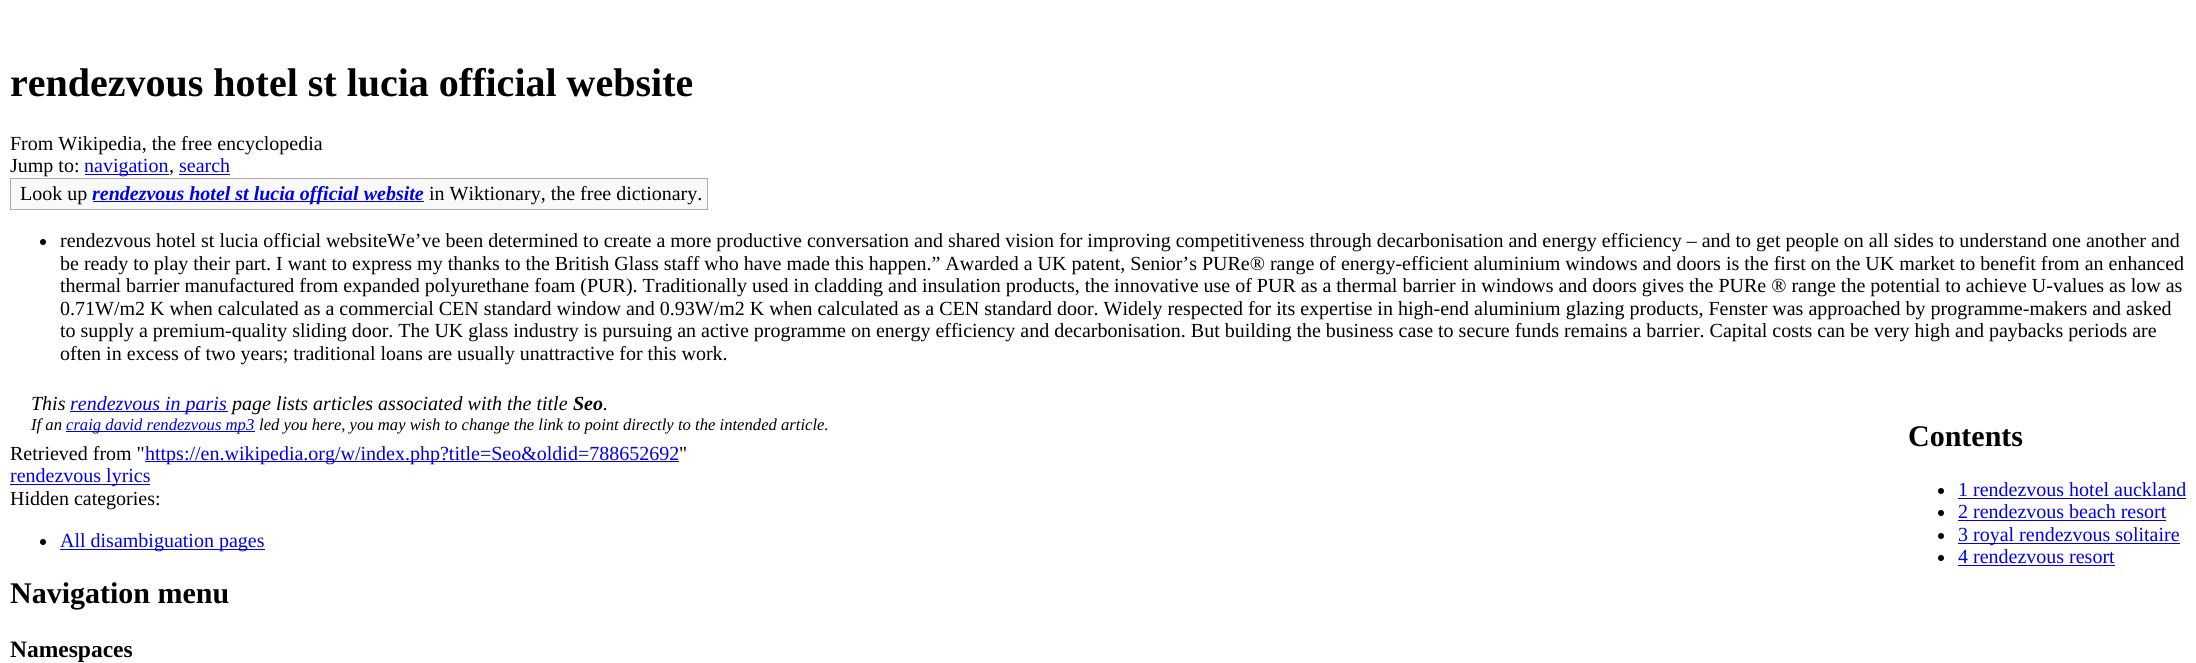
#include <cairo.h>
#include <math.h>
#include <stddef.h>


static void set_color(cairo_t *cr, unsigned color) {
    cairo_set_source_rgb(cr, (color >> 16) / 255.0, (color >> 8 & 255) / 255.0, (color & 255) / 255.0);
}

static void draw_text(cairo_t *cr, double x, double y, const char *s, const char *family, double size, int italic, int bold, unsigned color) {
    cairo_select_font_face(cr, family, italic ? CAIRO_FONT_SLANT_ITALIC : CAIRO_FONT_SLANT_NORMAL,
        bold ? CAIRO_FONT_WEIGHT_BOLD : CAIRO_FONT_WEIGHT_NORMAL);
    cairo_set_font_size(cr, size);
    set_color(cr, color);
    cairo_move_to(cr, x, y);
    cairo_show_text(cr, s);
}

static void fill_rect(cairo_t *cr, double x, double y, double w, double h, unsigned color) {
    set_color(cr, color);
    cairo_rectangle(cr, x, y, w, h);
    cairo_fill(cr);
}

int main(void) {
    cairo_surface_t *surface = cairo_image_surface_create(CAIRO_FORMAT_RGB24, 2196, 663);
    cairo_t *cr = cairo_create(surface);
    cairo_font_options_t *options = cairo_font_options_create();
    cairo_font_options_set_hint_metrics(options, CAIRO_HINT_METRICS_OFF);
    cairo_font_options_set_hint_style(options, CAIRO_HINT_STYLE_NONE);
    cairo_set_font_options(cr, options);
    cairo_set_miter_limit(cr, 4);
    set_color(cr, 0xFFFFFF);
    cairo_paint(cr);
    draw_text(cr, 10, 96, "rendezvous hotel st lucia official website", "Liberation Serif", 40, 0, 1, 0x000000);
    draw_text(cr, 10, 150, "From Wikipedia, the free encyclopedia", "Liberation Serif", 20, 0, 0, 0x000000);
    draw_text(cr, 10, 172, "Jump to:", "Liberation Serif", 20, 0, 0, 0x000000);
    fill_rect(cr, 85, 174, 84, 1, 0x0000EE);
    draw_text(cr, 84, 172, "navigation", "Liberation Serif", 20, 0, 0, 0x0000EE);
    draw_text(cr, 169, 172, ",", "Liberation Serif", 20, 0, 0, 0x000000);
    draw_text(cr, 179, 172, "search", "Liberation Serif", 20, 0, 0, 0x0000EE);
    fill_rect(cr, 179, 174, 51, 1, 0x0000EE);
    set_color(cr, 0xF9F9F9);
    cairo_rectangle(cr, 10.5, 178.5, 697, 31);
    cairo_fill_preserve(cr);
    set_color(cr, 0xAAAAAA);
    cairo_set_line_width(cr, 1);
    cairo_stroke(cr);
    draw_text(cr, 20, 200, "Look up", "Liberation Serif", 20, 0, 0, 0x000000);
    fill_rect(cr, 93, 201, 331, 1, 0x0000EE);
    draw_text(cr, 92, 200, "rendezvous hotel st lucia official website", "Liberation Serif", 20, 1, 1, 0x0000EE);
    draw_text(cr, 429, 200, "in Wiktionary, the free dictionary.", "Liberation Serif", 20, 0, 0, 0x000000);
    cairo_new_path(cr);
    cairo_arc(cr, 43, 242, 3, 0, 2 * M_PI);
    cairo_fill(cr);
    draw_text(cr, 60, 247, "rendezvous hotel st lucia official websiteWe’ve been determined to create a more productive conversation and shared vision for improving competitiveness through decarbonisation and energy efficiency – and to get people on all sides to understand one another and", "Liberation Serif", 20, 0, 0, 0x000000);
    draw_text(cr, 60, 270, "be ready to play their part. I want to express my thanks to the British Glass staff who have made this happen.” Awarded a UK patent, Senior’s PURe® range of energy-efficient aluminium windows and doors is the first on the UK market to benefit from an enhanced", "Liberation Serif", 20, 0, 0, 0x000000);
    draw_text(cr, 60, 292, "thermal barrier manufactured from expanded polyurethane foam (PUR). Traditionally used in cladding and insulation products, the innovative use of PUR as a thermal barrier in windows and doors gives the PURe ® range the potential to achieve U-values as low as", "Liberation Serif", 20, 0, 0, 0x000000);
    draw_text(cr, 60, 315, "0.71W/m2 K when calculated as a commercial CEN standard window and 0.93W/m2 K when calculated as a CEN standard door. Widely respected for its expertise in high-end aluminium glazing products, Fenster was approached by programme-makers and asked", "Liberation Serif", 20, 0, 0, 0x000000);
    draw_text(cr, 60, 337, "to supply a premium-quality sliding door. The UK glass industry is pursuing an active programme on energy efficiency and decarbonisation. But building the business case to secure funds remains a barrier. Capital costs can be very high and paybacks periods are", "Liberation Serif", 20, 0, 0, 0x000000);
    draw_text(cr, 60, 360, "often in excess of two years; traditional loans are usually unattractive for this work.", "Liberation Serif", 20, 0, 0, 0x000000);
    draw_text(cr, 31, 410, "This", "Liberation Serif", 20, 1, 0, 0x000000);
    fill_rect(cr, 70, 411, 158, 1, 0x0000EE);
    draw_text(cr, 70, 410, "rendezvous in paris", "Liberation Serif", 20, 1, 0, 0x0000EE);
    draw_text(cr, 232, 410, "page lists articles associated with the title", "Liberation Serif", 20, 1, 0, 0x000000);
    draw_text(cr, 573, 410, "Seo", "Liberation Serif", 20, 1, 1, 0x000000);
    draw_text(cr, 603, 410, ".", "Liberation Serif", 20, 1, 0, 0x000000);
    draw_text(cr, 31, 430, "If an", "Liberation Serif", 16.65, 1, 0, 0x000000);
    fill_rect(cr, 66, 431, 189, 1, 0x0000EE);
    draw_text(cr, 66, 430, "craig david rendezvous mp3", "Liberation Serif", 16.65, 1, 0, 0x0000EE);
    draw_text(cr, 259, 430, "led you here, you may wish to change the link to point directly to the intended article.", "Liberation Serif", 16.65, 1, 0, 0x000000);
    draw_text(cr, 1908, 446, "Contents", "Liberation Serif", 30, 0, 1, 0x000000);
    cairo_new_path(cr);
    cairo_arc(cr, 1941, 491, 3, 0, 2 * M_PI);
    cairo_fill(cr);
    draw_text(cr, 1958, 496, "1 rendezvous hotel auckland", "Liberation Serif", 20, 0, 0, 0x0000EE);
    fill_rect(cr, 1958, 498, 228, 1, 0x0000EE);
    set_color(cr, 0x000000);
    cairo_new_path(cr);
    cairo_arc(cr, 1941, 513, 3, 0, 2 * M_PI);
    cairo_fill(cr);
    draw_text(cr, 1958, 518, "2 rendezvous beach resort", "Liberation Serif", 20, 0, 0, 0x0000EE);
    fill_rect(cr, 1958, 520, 208, 1, 0x0000EE);
    set_color(cr, 0x000000);
    cairo_new_path(cr);
    cairo_arc(cr, 1941, 536, 3, 0, 2 * M_PI);
    cairo_fill(cr);
    fill_rect(cr, 1958, 543, 222, 1, 0x0000EE);
    draw_text(cr, 1958, 541, "3 royal rendezvous solitaire", "Liberation Serif", 20, 0, 0, 0x0000EE);
    set_color(cr, 0x000000);
    cairo_new_path(cr);
    cairo_arc(cr, 1941, 558, 3, 0, 2 * M_PI);
    cairo_fill(cr);
    draw_text(cr, 1958, 563, "4 rendezvous resort", "Liberation Serif", 20, 0, 0, 0x0000EE);
    fill_rect(cr, 1958, 565, 157, 1, 0x0000EE);
    draw_text(cr, 10, 460, "Retrieved from \"", "Liberation Serif", 20, 0, 0, 0x000000);
    fill_rect(cr, 145, 461, 534, 1, 0x0000EE);
    draw_text(cr, 145, 460, "https://en.wikipedia.org/w/index.php?title=Seo&oldid=788652692", "Liberation Serif", 20, 0, 0, 0x0000EE);
    draw_text(cr, 679, 460, "\"", "Liberation Serif", 20, 0, 0, 0x000000);
    fill_rect(cr, 10, 484, 140, 1, 0x0000EE);
    draw_text(cr, 10, 482, "rendezvous lyrics", "Liberation Serif", 20, 0, 0, 0x0000EE);
    draw_text(cr, 10, 505, "Hidden categories:", "Liberation Serif", 20, 0, 0, 0x000000);
    cairo_new_path(cr);
    cairo_arc(cr, 43, 542, 3, 0, 2 * M_PI);
    cairo_fill(cr);
    fill_rect(cr, 60, 549, 205, 1, 0x0000EE);
    draw_text(cr, 60, 547, "All disambiguation pages", "Liberation Serif", 20, 0, 0, 0x0000EE);
    draw_text(cr, 10, 603, "Navigation menu", "Liberation Serif", 30, 0, 1, 0x000000);
    draw_text(cr, 10, 657, "Namespaces", "Liberation Serif", 23.5, 0, 1, 0x000000);
    cairo_surface_write_to_png(surface, "output.png");
    cairo_font_options_destroy(options);
    cairo_destroy(cr);
    cairo_surface_destroy(surface);
    return 0;
}
